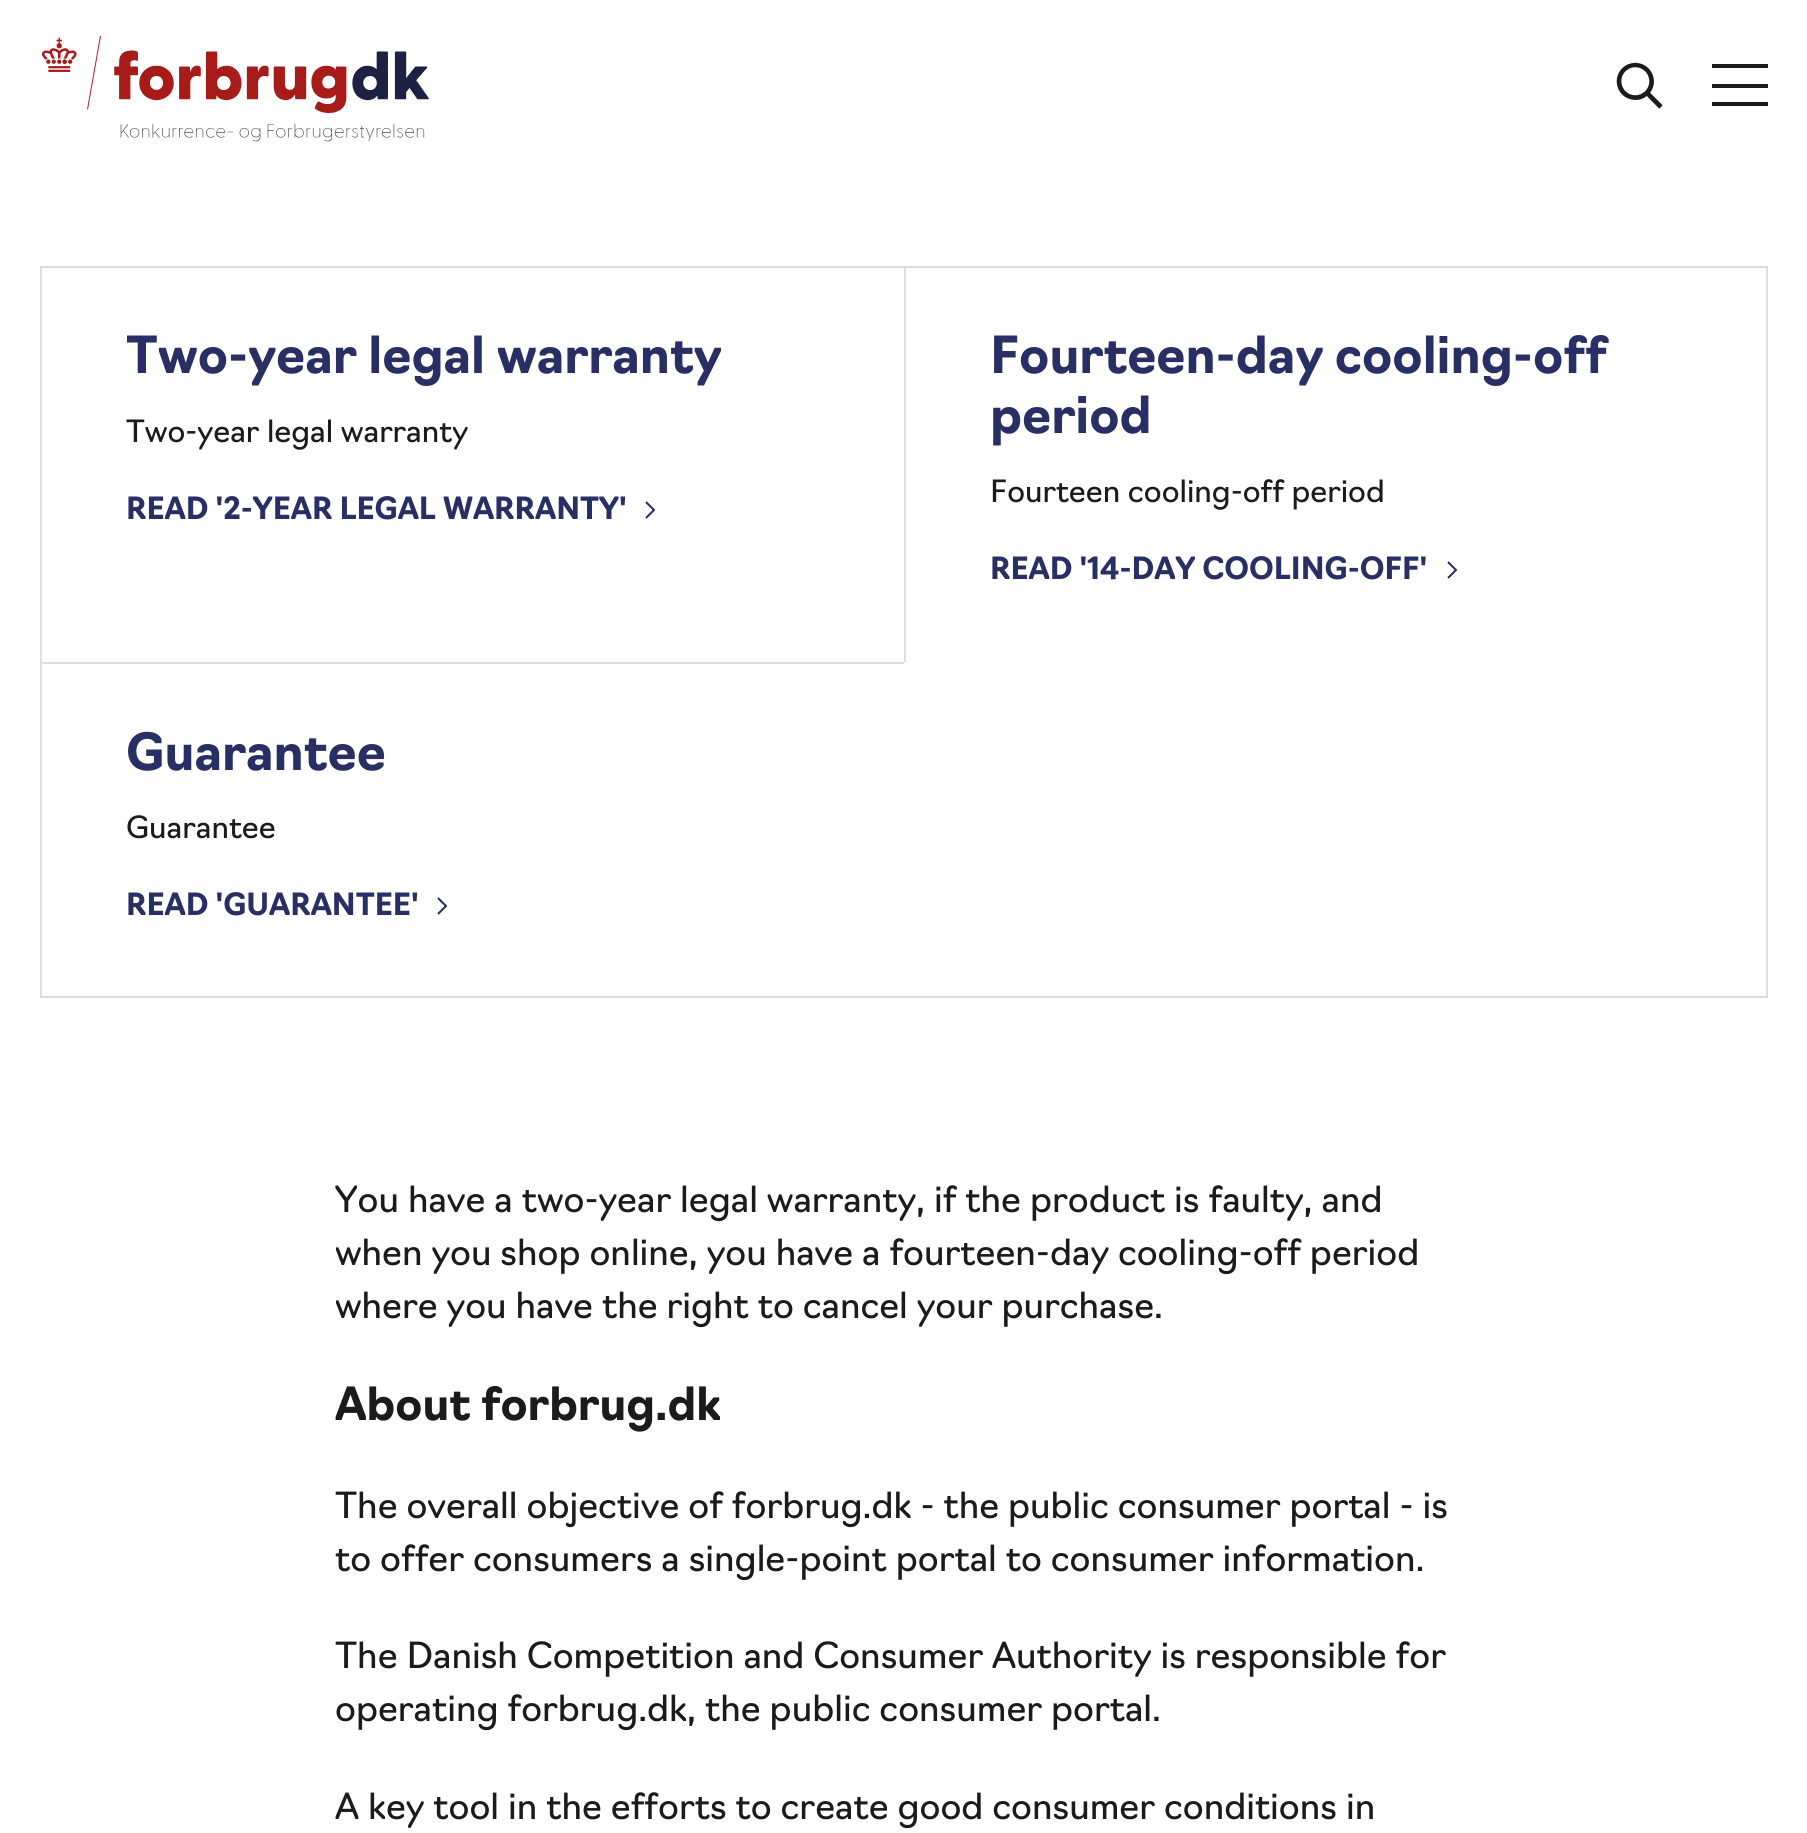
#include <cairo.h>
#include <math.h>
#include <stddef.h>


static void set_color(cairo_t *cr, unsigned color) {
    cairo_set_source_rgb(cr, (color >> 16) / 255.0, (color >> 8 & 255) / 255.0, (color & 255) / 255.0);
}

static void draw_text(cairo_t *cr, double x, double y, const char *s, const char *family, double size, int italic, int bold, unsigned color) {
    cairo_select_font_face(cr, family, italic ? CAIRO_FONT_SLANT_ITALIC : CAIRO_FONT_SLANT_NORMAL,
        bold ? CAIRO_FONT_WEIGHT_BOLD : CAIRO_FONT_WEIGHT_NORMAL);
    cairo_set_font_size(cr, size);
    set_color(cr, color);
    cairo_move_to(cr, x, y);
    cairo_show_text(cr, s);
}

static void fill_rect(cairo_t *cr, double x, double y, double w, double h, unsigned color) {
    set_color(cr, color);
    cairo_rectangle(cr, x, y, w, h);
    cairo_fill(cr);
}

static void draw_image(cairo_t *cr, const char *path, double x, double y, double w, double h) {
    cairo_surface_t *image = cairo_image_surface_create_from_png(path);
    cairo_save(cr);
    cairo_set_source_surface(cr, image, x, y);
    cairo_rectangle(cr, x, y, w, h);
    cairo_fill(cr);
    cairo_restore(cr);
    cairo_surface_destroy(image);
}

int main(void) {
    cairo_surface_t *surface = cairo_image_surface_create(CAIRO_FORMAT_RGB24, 1807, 1833);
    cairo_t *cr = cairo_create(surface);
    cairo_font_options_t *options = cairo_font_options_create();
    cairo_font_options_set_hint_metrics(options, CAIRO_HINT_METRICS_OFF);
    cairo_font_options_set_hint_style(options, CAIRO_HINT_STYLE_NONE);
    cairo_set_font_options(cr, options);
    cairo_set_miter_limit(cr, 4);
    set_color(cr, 0xFFFFFF);
    cairo_paint(cr);
    draw_image(cr, "assets/img1.png", 42, 36, 387, 106);
    draw_image(cr, "assets/img2.png", 1616, 62, 47, 47);
    fill_rect(cr, 1712, 84, 56, 4, 0x1B1B1B);
    fill_rect(cr, 1712, 64, 56, 4, 0x1B1B1B);
    fill_rect(cr, 1712, 102, 56, 4, 0x1B1B1B);
    cairo_rectangle(cr, 41, 267, 1726, 730);
    set_color(cr, 0xDDDDDD);
    cairo_stroke(cr);
    draw_text(cr, 126, 373, "Two-year legal warranty", "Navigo", 50, 0, 1, 0x282F65);
    draw_text(cr, 126, 442, "Two-year legal warranty", "Navigo", 30, 0, 0, 0x1B1B1B);
    draw_text(cr, 126, 519, "READ '2-YEAR LEGAL WARRANTY'", "Navigo", 30, 0, 1, 0x282F65);
    draw_image(cr, "assets/img3.png", 645, 501, 11, 18);
    cairo_save(cr);
    cairo_rectangle(cr, 904, 266, 864, 396);
    cairo_clip(cr);
    cairo_rectangle(cr, 905, 267, 864, 396);
    set_color(cr, 0xDDDDDD);
    cairo_stroke(cr);
    cairo_restore(cr);
    draw_text(cr, 990, 373, "Fourteen-day cooling-off", "Navigo", 50, 0, 1, 0x282F65);
    draw_text(cr, 990, 433, "period", "Navigo", 50, 0, 1, 0x282F65);
    draw_text(cr, 990, 502, "Fourteen cooling-off period", "Navigo", 30, 0, 0, 0x1B1B1B);
    draw_text(cr, 990, 579, "READ '14-DAY COOLING-OFF'", "Navigo", 30, 0, 1, 0x282F65);
    draw_image(cr, "assets/img3.png", 1447, 561, 11, 18);
    cairo_save(cr);
    cairo_rectangle(cr, 40, 662, 864, 336);
    cairo_clip(cr);
    cairo_rectangle(cr, 41, 663, 864, 336);
    set_color(cr, 0xDDDDDD);
    cairo_stroke(cr);
    cairo_restore(cr);
    draw_text(cr, 126, 770, "Guarantee", "Navigo", 50, 0, 1, 0x282F65);
    draw_text(cr, 126, 838, "Guarantee", "Navigo", 30, 0, 0, 0x1B1B1B);
    draw_text(cr, 126, 915, "READ 'GUARANTEE'", "Navigo", 30, 0, 1, 0x282F65);
    draw_image(cr, "assets/img3.png", 437, 897, 11, 18);
    draw_text(cr, 335, 1212, "You have a two-year legal warranty, if the product is faulty, and", "Navigo", 35.2, 0, 0, 0x1B1B1B);
    draw_text(cr, 335, 1265, "when you shop online, you have a fourteen-day cooling-off period", "Navigo", 35.2, 0, 0, 0x1B1B1B);
    draw_text(cr, 335, 1318, "where you have the right to cancel your purchase.", "Navigo", 35.2, 0, 0, 0x1B1B1B);
    draw_text(cr, 335, 1420, "About forbrug.dk", "Navigo", 44.75, 0, 1, 0x1B1B1B);
    draw_text(cr, 335, 1518, "The overall objective of forbrug.dk - the public consumer portal - is", "Navigo", 35.2, 0, 0, 0x1B1B1B);
    draw_text(cr, 335, 1571, "to offer consumers a single-point portal to consumer information.", "Navigo", 35.2, 0, 0, 0x1B1B1B);
    draw_text(cr, 335, 1668, "The Danish Competition and Consumer Authority is responsible for", "Navigo", 35.2, 0, 0, 0x1B1B1B);
    draw_text(cr, 335, 1721, "operating forbrug.dk, the public consumer portal.", "Navigo", 35.2, 0, 0, 0x1B1B1B);
    draw_text(cr, 335, 1819, "A key tool in the efforts to create good consumer conditions in", "Navigo", 35.2, 0, 0, 0x1B1B1B);
    cairo_surface_write_to_png(surface, "output.png");
    cairo_font_options_destroy(options);
    cairo_destroy(cr);
    cairo_surface_destroy(surface);
    return 0;
}
